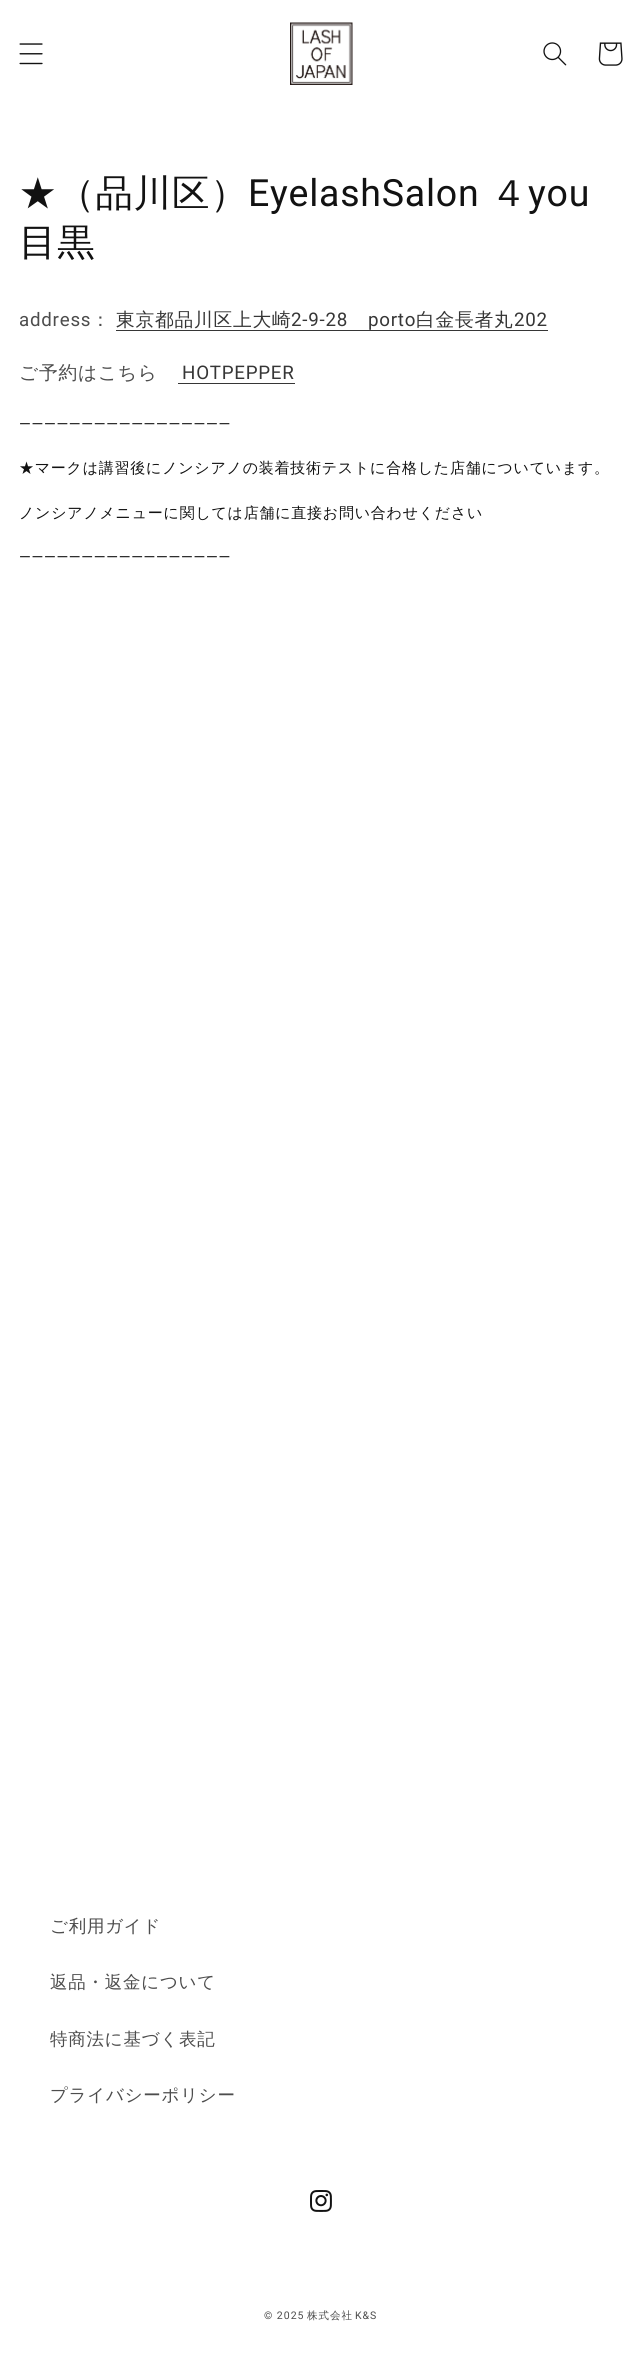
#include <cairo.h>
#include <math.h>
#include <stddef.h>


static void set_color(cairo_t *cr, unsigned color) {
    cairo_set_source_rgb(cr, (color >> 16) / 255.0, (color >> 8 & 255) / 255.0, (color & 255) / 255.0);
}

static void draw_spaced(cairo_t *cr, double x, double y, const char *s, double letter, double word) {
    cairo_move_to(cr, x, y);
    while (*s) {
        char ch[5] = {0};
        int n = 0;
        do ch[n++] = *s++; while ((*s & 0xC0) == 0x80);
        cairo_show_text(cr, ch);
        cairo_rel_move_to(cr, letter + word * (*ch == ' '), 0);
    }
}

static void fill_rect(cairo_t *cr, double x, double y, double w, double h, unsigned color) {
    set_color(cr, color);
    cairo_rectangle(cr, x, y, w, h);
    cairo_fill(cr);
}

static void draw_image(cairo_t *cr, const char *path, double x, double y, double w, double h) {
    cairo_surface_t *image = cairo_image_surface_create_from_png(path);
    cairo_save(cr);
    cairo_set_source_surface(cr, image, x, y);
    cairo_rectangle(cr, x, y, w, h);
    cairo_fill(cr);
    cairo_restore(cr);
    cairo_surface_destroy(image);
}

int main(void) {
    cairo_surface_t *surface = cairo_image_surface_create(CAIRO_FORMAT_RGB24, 641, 2358);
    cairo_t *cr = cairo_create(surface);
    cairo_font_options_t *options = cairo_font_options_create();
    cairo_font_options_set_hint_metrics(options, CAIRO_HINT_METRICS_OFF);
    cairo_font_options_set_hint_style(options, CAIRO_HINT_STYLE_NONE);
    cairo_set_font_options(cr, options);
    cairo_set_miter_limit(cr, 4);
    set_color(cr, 0xFFFFFF);
    cairo_paint(cr);
    draw_image(cr, "assets/img1.png", 19, 43, 24, 22);
    draw_image(cr, "assets/img2.png", 290, 22, 63, 63);
    draw_image(cr, "assets/img3.png", 543, 42, 24, 24);
    draw_image(cr, "assets/img4.png", 598, 42, 25, 24);
    cairo_select_font_face(cr, "WenQuanYi Zen Hei Medium", CAIRO_FONT_SLANT_NORMAL, CAIRO_FONT_WEIGHT_NORMAL);
    cairo_set_font_size(cr, 37.5);
    set_color(cr, 0x121212);
    draw_spaced(cr, 19, 206, "★（品川区）", 0.75, 0);
    cairo_select_font_face(cr, "Roboto", CAIRO_FONT_SLANT_NORMAL, CAIRO_FONT_WEIGHT_NORMAL);
    draw_spaced(cr, 248, 206, "EyelashSalon", 0.75, 0);
    cairo_select_font_face(cr, "WenQuanYi Zen Hei Medium", CAIRO_FONT_SLANT_NORMAL, CAIRO_FONT_WEIGHT_NORMAL);
    draw_spaced(cr, 490, 206, "４", 0.75, 0);
    cairo_select_font_face(cr, "Roboto", CAIRO_FONT_SLANT_NORMAL, CAIRO_FONT_WEIGHT_NORMAL);
    draw_spaced(cr, 528, 206, "you", 0.75, 0);
    cairo_select_font_face(cr, "WenQuanYi Zen Hei Medium", CAIRO_FONT_SLANT_NORMAL, CAIRO_FONT_WEIGHT_NORMAL);
    draw_spaced(cr, 19, 255, "目黒", 0.75, 0);
    cairo_select_font_face(cr, "Roboto", CAIRO_FONT_SLANT_NORMAL, CAIRO_FONT_WEIGHT_NORMAL);
    cairo_set_font_size(cr, 18.75);
    set_color(cr, 0x4D4D4D);
    draw_spaced(cr, 19, 326, "address", 0.75, 0);
    cairo_select_font_face(cr, "WenQuanYi Zen Hei Medium", CAIRO_FONT_SLANT_NORMAL, CAIRO_FONT_WEIGHT_NORMAL);
    draw_spaced(cr, 91, 326, "：", 0.75, 0);
    set_color(cr, 0x363636);
    draw_spaced(cr, 116, 326, "東京都品川区上大崎", 0.75, 0);
    cairo_select_font_face(cr, "Roboto", CAIRO_FONT_SLANT_NORMAL, CAIRO_FONT_WEIGHT_NORMAL);
    draw_spaced(cr, 291, 326, "2-9-28", 0.75, 0);
    draw_spaced(cr, 368, 326, "porto", 0.75, 0);
    fill_rect(cr, 116, 330, 432, 1, 0x363636);
    cairo_select_font_face(cr, "WenQuanYi Zen Hei Medium", CAIRO_FONT_SLANT_NORMAL, CAIRO_FONT_WEIGHT_NORMAL);
    draw_spaced(cr, 416, 326, "白金長者丸", 0.75, 0);
    cairo_select_font_face(cr, "Roboto", CAIRO_FONT_SLANT_NORMAL, CAIRO_FONT_WEIGHT_NORMAL);
    draw_spaced(cr, 514, 326, "202", 0.75, 0);
    cairo_select_font_face(cr, "WenQuanYi Zen Hei Medium", CAIRO_FONT_SLANT_NORMAL, CAIRO_FONT_WEIGHT_NORMAL);
    set_color(cr, 0x4D4D4D);
    draw_spaced(cr, 19, 379, "ご予約はこちら", 0.75, 0);
    cairo_select_font_face(cr, "Roboto", CAIRO_FONT_SLANT_NORMAL, CAIRO_FONT_WEIGHT_NORMAL);
    set_color(cr, 0x363636);
    draw_spaced(cr, 182, 379, "HOTPEPPER", 0.75, 0);
    fill_rect(cr, 178, 383, 117, 1, 0x363636);
    cairo_set_font_size(cr, 15);
    set_color(cr, 0x121212);
    draw_spaced(cr, 19, 429, "―――――――――――――――――", 0.75, 0);
    cairo_select_font_face(cr, "WenQuanYi Zen Hei Medium", CAIRO_FONT_SLANT_NORMAL, CAIRO_FONT_WEIGHT_NORMAL);
    draw_spaced(cr, 19, 473, "★マークは講習後にノンシアノの装着技術テストに合格した店舗についています。", 0.75, 0);
    draw_spaced(cr, 19, 518, "ノンシアノメニューに関しては店舗に直接お問い合わせください", 0.75, 0);
    cairo_select_font_face(cr, "Roboto", CAIRO_FONT_SLANT_NORMAL, CAIRO_FONT_WEIGHT_NORMAL);
    draw_spaced(cr, 19, 562, "―――――――――――――――――", 0.75, 0);
    cairo_select_font_face(cr, "WenQuanYi Zen Hei Medium", CAIRO_FONT_SLANT_NORMAL, CAIRO_FONT_WEIGHT_NORMAL);
    cairo_set_font_size(cr, 17.5);
    set_color(cr, 0x4D4D4D);
    draw_spaced(cr, 50, 1932, "ご利用ガイド", 0.75, 0);
    draw_spaced(cr, 50, 1988, "返品・返金について", 0.75, 0);
    draw_spaced(cr, 50, 2045, "特商法に基づく表記", 0.75, 0);
    draw_spaced(cr, 50, 2101, "プライバシーポリシー", 0.75, 0);
    draw_image(cr, "assets/img5.png", 310, 2190, 22, 22);
    cairo_select_font_face(cr, "Roboto", CAIRO_FONT_SLANT_NORMAL, CAIRO_FONT_WEIGHT_NORMAL);
    cairo_set_font_size(cr, 10.5);
    draw_spaced(cr, 264, 2319, "© 2025", 1, 0);
    cairo_select_font_face(cr, "WenQuanYi Zen Hei Medium", CAIRO_FONT_SLANT_NORMAL, CAIRO_FONT_WEIGHT_NORMAL);
    draw_spaced(cr, 307, 2319, "株式会社", 1, 0);
    cairo_select_font_face(cr, "Roboto", CAIRO_FONT_SLANT_NORMAL, CAIRO_FONT_WEIGHT_NORMAL);
    draw_spaced(cr, 355, 2319, "K&S", 1, 0);
    cairo_surface_write_to_png(surface, "output.png");
    cairo_font_options_destroy(options);
    cairo_destroy(cr);
    cairo_surface_destroy(surface);
    return 0;
}
